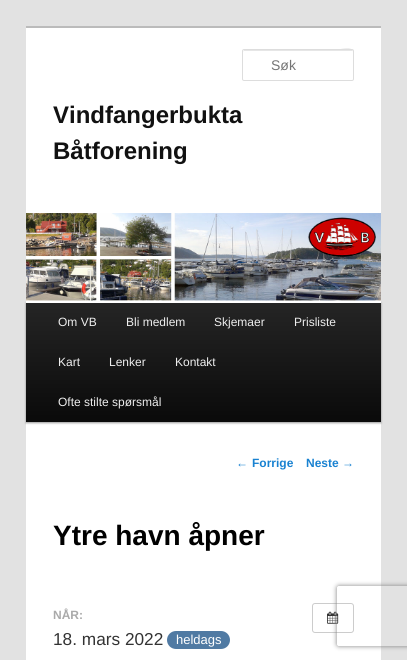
#include <cairo.h>
#include <math.h>
#include <stddef.h>


static void set_color(cairo_t *cr, unsigned color) {
    cairo_set_source_rgb(cr, (color >> 16) / 255.0, (color >> 8 & 255) / 255.0, (color & 255) / 255.0);
}

static void draw_text(cairo_t *cr, double x, double y, const char *s, const char *family, double size, int italic, int bold, unsigned color) {
    cairo_select_font_face(cr, family, italic ? CAIRO_FONT_SLANT_ITALIC : CAIRO_FONT_SLANT_NORMAL,
        bold ? CAIRO_FONT_WEIGHT_BOLD : CAIRO_FONT_WEIGHT_NORMAL);
    cairo_set_font_size(cr, size);
    set_color(cr, color);
    cairo_move_to(cr, x, y);
    cairo_show_text(cr, s);
}

static void fill_rect(cairo_t *cr, double x, double y, double w, double h, unsigned color) {
    set_color(cr, color);
    cairo_rectangle(cr, x, y, w, h);
    cairo_fill(cr);
}

static void rounded_rect(cairo_t *cr, double x, double y, double w, double h, double r) {
    cairo_new_sub_path(cr);
    cairo_arc(cr, x + w - r, y + h - r, r, 0, M_PI / 2);
    cairo_arc(cr, x + r, y + h - r, r, M_PI / 2, M_PI);
    cairo_arc(cr, x + r, y + r, r, M_PI, 1.5 * M_PI);
    cairo_arc(cr, x + w - r, y + r, r, 1.5 * M_PI, 2 * M_PI);
    cairo_close_path(cr);
}

static void draw_shadow(cairo_t *cr, double x, double y, double w, double h, double r, double blur, double alpha) {
    cairo_push_group_with_content(cr, CAIRO_CONTENT_ALPHA);
    cairo_set_operator(cr, CAIRO_OPERATOR_SOURCE);
    for (int i = 15; i >= -15 && fmin(w, h) + blur * i / 3 > 0; i -= 2) {
        double e = blur * i / 6;
        cairo_set_source_rgba(cr, 0, 0, 0, alpha * erfc((i - 1) / 8.5) / 2);
        rounded_rect(cr, x - e, y - e, w + 2 * e, h + 2 * e, fmax(0, fmin(r + e + blur * .6, fmin(w, h) / 2 + e)));
        cairo_fill(cr);
    }
    cairo_pattern_t *soft = cairo_pop_group(cr);
    cairo_mask(cr, soft);
    cairo_pattern_destroy(soft);
}

static void draw_image(cairo_t *cr, const char *path, double x, double y, double w, double h) {
    cairo_surface_t *image = cairo_image_surface_create_from_png(path);
    cairo_save(cr);
    cairo_set_source_surface(cr, image, x, y);
    cairo_rectangle(cr, x, y, w, h);
    cairo_fill(cr);
    cairo_restore(cr);
    cairo_surface_destroy(image);
}

int main(void) {
    cairo_surface_t *surface = cairo_image_surface_create(CAIRO_FORMAT_RGB24, 407, 660);
    cairo_t *cr = cairo_create(surface);
    cairo_font_options_t *options = cairo_font_options_create();
    cairo_font_options_set_hint_metrics(options, CAIRO_HINT_METRICS_OFF);
    cairo_font_options_set_hint_style(options, CAIRO_HINT_STYLE_NONE);
    cairo_set_font_options(cr, options);
    cairo_set_miter_limit(cr, 4);
    cairo_pattern_t *gradient;
    set_color(cr, 0xE2E2E2);
    cairo_paint(cr);
    fill_rect(cr, 26, 28, 355, 632, 0xFFFFFF);
    fill_rect(cr, 26, 26, 355, 2, 0xBBBBBB);
    set_color(cr, 0xE6E6E6);
    cairo_new_path(cr);
    cairo_move_to(cr, 244, 51);
    cairo_line_to(cr, 353, 51);
    cairo_line_to(cr, 353, 52);
    cairo_curve_to(cr, 353, 45, 338, 50, 334, 50);
    cairo_line_to(cr, 244, 50);
    cairo_line_to(cr, 243, 52);
    cairo_curve_to(cr, 243, 51, 243, 51, 244, 51);
    cairo_close_path(cr);
    cairo_fill(cr);
    rounded_rect(cr, 242.5, 49.5, 111, 31, 1.5);
    set_color(cr, 0xDDDDDD);
    cairo_set_line_width(cr, 1);
    cairo_stroke(cr);
    draw_text(cr, 271, 70, "Søk", "Liberation Sans", 14, 0, 0, 0x757575);
    draw_text(cr, 53, 123, "Vindfangerbukta", "Liberation Sans", 24, 0, 1, 0x111111);
    draw_text(cr, 53, 159, "Båtforening", "Liberation Sans", 24, 0, 1, 0x111111);
    set_color(cr, 0x000000);
    draw_shadow(cr, 26, 303, 355, 120, 0, 1, 0.4);
    draw_image(cr, "assets/img1.png", 26, 213, 355, 90);
    gradient = cairo_pattern_create_linear(204, 302, 204, 422);
    cairo_pattern_add_color_stop_rgba(gradient, 0, 0.145, 0.145, 0.145, 1);
    cairo_pattern_add_color_stop_rgba(gradient, 1, 0.039, 0.039, 0.039, 1);
    cairo_set_source(cr, gradient);
    cairo_pattern_destroy(gradient);
    cairo_rectangle(cr, 26, 303, 355, 119);
    cairo_fill(cr);
    draw_text(cr, 58, 326, "Om VB", "Liberation Sans", 12, 0, 0, 0xEEEEEE);
    draw_text(cr, 126, 326, "Bli medlem", "Liberation Sans", 12, 0, 0, 0xEEEEEE);
    draw_text(cr, 214, 326, "Skjemaer", "Liberation Sans", 12, 0, 0, 0xEEEEEE);
    draw_text(cr, 294, 326, "Prisliste", "Liberation Sans", 12, 0, 0, 0xEEEEEE);
    draw_text(cr, 58, 366, "Kart", "Liberation Sans", 12, 0, 0, 0xEEEEEE);
    draw_text(cr, 109, 366, "Lenker", "Liberation Sans", 12, 0, 0, 0xEEEEEE);
    draw_text(cr, 175, 366, "Kontakt", "Liberation Sans", 12, 0, 0, 0xEEEEEE);
    draw_text(cr, 58, 406, "Ofte stilte spørsmål", "Liberation Sans", 12, 0, 0, 0xEEEEEE);
    draw_text(cr, 236, 467, "←", "Liberation Sans", 12, 0, 0, 0x1982D1);
    draw_text(cr, 252, 467, "Forrige", "Liberation Sans", 12, 0, 1, 0x1982D1);
    draw_text(cr, 306, 467, "Neste", "Liberation Sans", 12, 0, 1, 0x1982D1);
    draw_text(cr, 342, 467, "→", "Liberation Sans", 12, 0, 0, 0x1982D1);
    draw_text(cr, 53, 545, "Ytre havn åpner", "Liberation Sans", 28, 0, 1, 0x000000);
    draw_text(cr, 53, 619, "NÅR:", "Liberation Sans", 12, 0, 1, 0xAAAAAA);
    draw_text(cr, 53, 645, "18. mars 2022", "Liberation Sans", 17.25, 0, 0, 0x333333);
    set_color(cr, 0x507AA3);
    rounded_rect(cr, 167, 631, 63, 18, 9);
    cairo_fill(cr);
    draw_text(cr, 176, 644, "heldags", "Liberation Sans", 13, 0, 0, 0xFFFFFF);
    rounded_rect(cr, 312.5, 603.5, 41, 29, 2.5);
    set_color(cr, 0xCCCCCC);
    cairo_stroke(cr);
    draw_image(cr, "assets/img2.png", 327, 611, 12, 13);
    cairo_save(cr);
    cairo_set_fill_rule(cr, CAIRO_FILL_RULE_EVEN_ODD);
    cairo_new_path(cr);
    cairo_move_to(cr, 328, 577);
    cairo_line_to(cr, 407, 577);
    cairo_line_to(cr, 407, 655);
    cairo_line_to(cr, 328, 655);
    cairo_close_path(cr);
    cairo_move_to(cr, 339, 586);
    cairo_line_to(cr, 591, 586);
    cairo_curve_to(cr, 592, 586, 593, 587, 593, 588);
    cairo_line_to(cr, 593, 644);
    cairo_curve_to(cr, 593, 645, 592, 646, 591, 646);
    cairo_line_to(cr, 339, 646);
    cairo_curve_to(cr, 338, 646, 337, 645, 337, 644);
    cairo_line_to(cr, 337, 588);
    cairo_curve_to(cr, 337, 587, 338, 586, 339, 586);
    cairo_close_path(cr);
    cairo_clip(cr);
    set_color(cr, 0x808080);
    draw_shadow(cr, 337, 586, 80, 60, 2, 2.5, 1);
    cairo_restore(cr);
    cairo_surface_write_to_png(surface, "output.png");
    cairo_font_options_destroy(options);
    cairo_destroy(cr);
    cairo_surface_destroy(surface);
    return 0;
}
